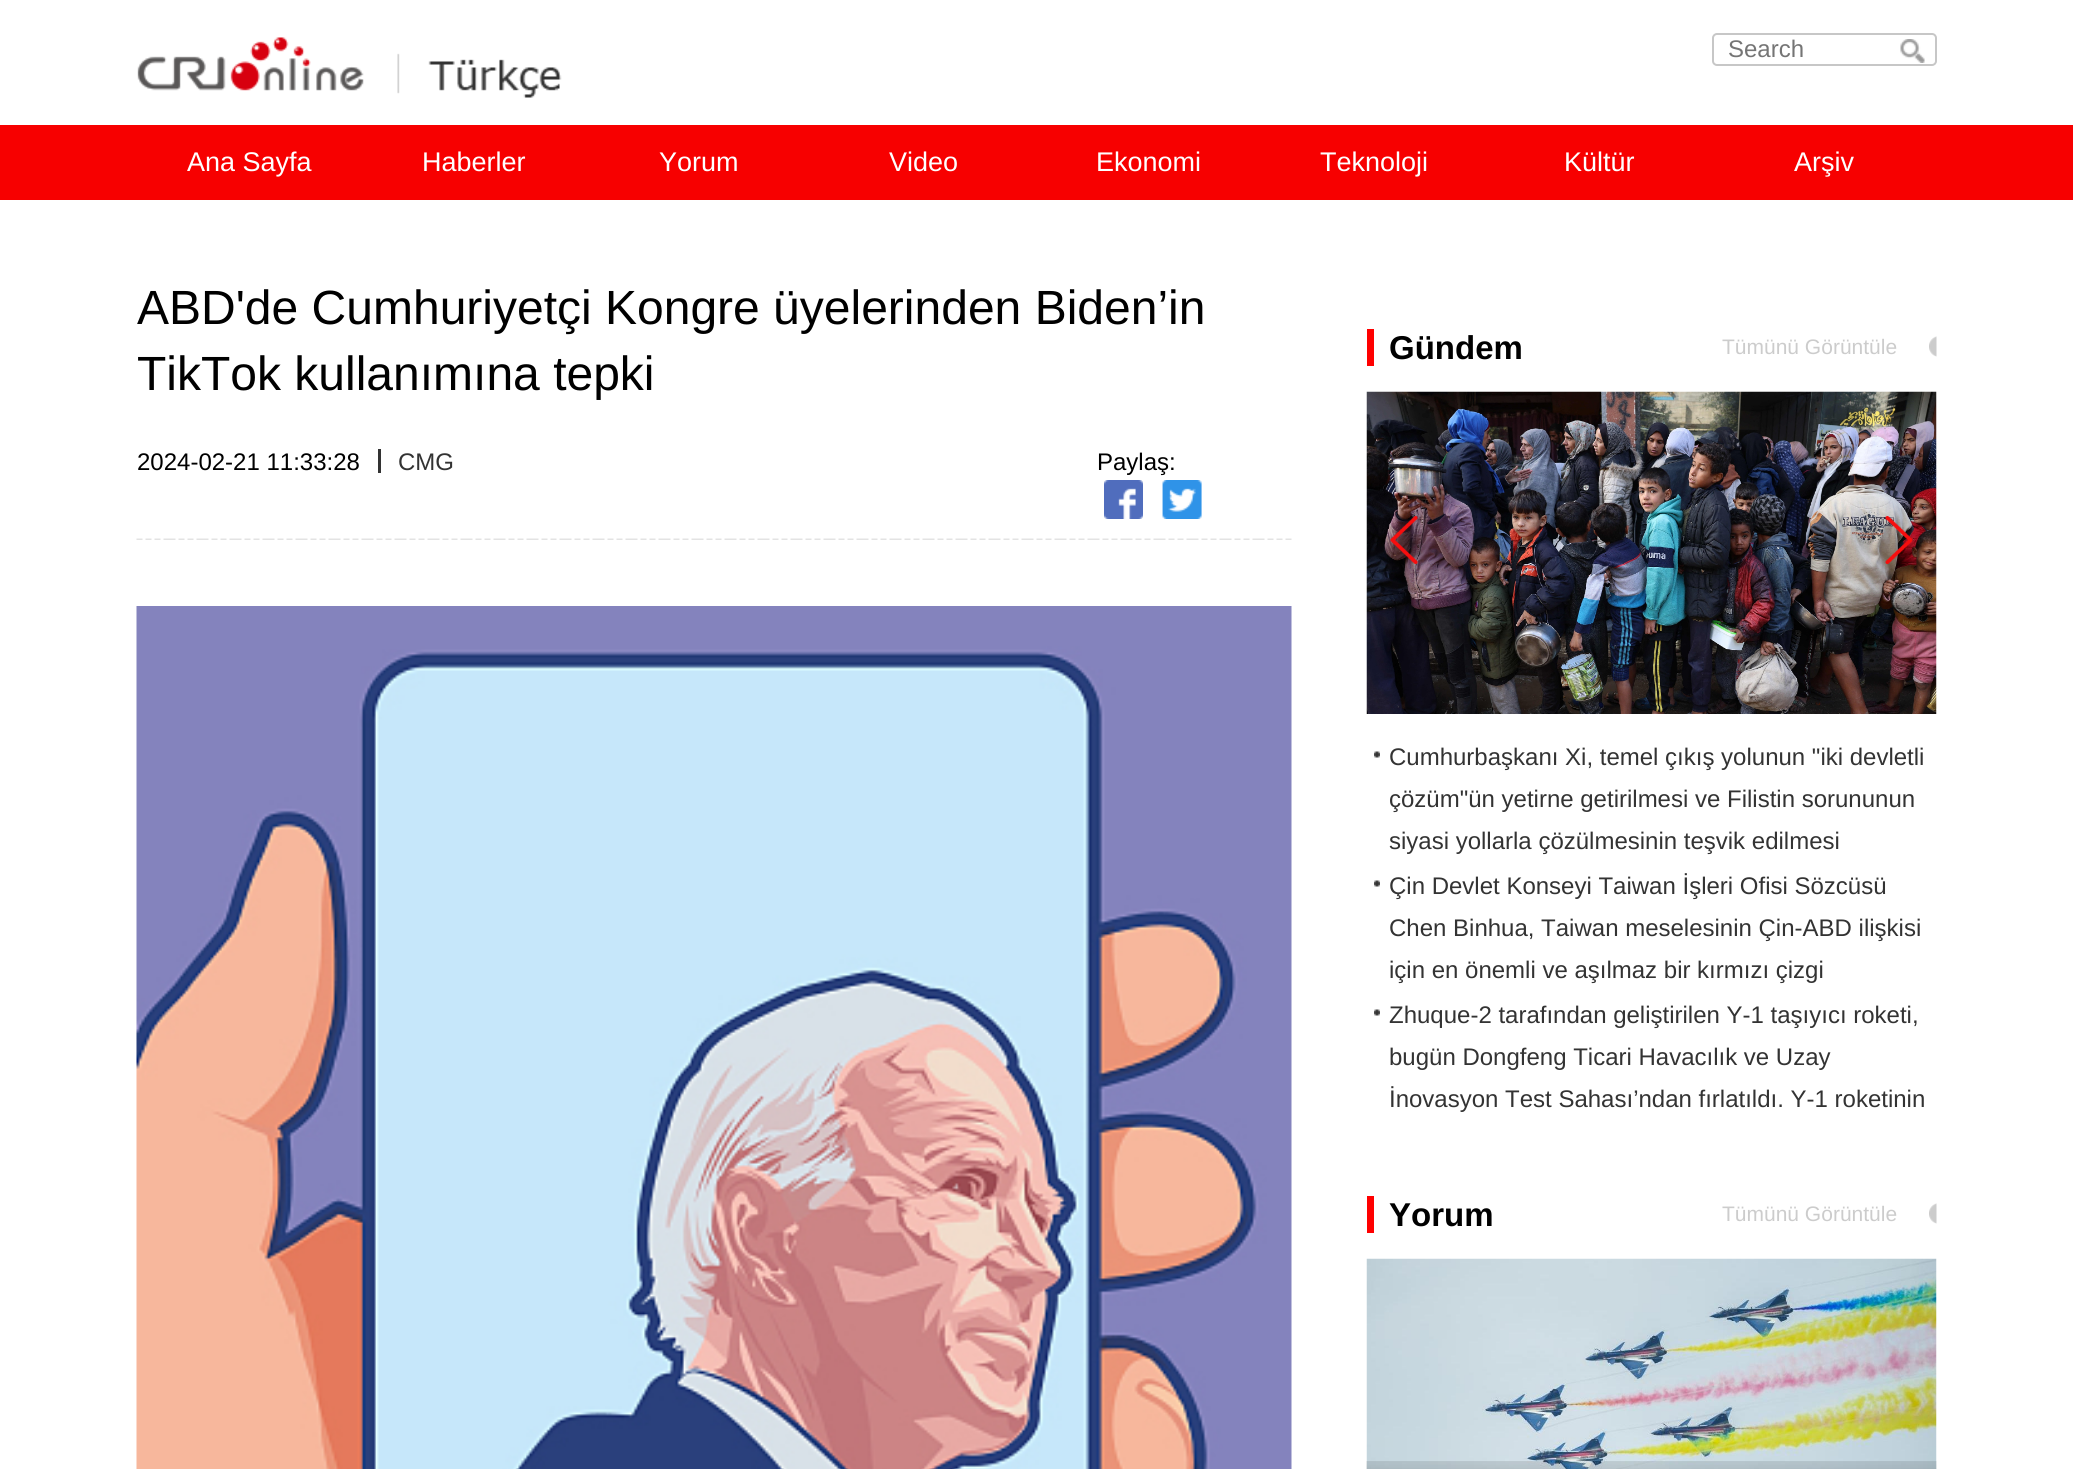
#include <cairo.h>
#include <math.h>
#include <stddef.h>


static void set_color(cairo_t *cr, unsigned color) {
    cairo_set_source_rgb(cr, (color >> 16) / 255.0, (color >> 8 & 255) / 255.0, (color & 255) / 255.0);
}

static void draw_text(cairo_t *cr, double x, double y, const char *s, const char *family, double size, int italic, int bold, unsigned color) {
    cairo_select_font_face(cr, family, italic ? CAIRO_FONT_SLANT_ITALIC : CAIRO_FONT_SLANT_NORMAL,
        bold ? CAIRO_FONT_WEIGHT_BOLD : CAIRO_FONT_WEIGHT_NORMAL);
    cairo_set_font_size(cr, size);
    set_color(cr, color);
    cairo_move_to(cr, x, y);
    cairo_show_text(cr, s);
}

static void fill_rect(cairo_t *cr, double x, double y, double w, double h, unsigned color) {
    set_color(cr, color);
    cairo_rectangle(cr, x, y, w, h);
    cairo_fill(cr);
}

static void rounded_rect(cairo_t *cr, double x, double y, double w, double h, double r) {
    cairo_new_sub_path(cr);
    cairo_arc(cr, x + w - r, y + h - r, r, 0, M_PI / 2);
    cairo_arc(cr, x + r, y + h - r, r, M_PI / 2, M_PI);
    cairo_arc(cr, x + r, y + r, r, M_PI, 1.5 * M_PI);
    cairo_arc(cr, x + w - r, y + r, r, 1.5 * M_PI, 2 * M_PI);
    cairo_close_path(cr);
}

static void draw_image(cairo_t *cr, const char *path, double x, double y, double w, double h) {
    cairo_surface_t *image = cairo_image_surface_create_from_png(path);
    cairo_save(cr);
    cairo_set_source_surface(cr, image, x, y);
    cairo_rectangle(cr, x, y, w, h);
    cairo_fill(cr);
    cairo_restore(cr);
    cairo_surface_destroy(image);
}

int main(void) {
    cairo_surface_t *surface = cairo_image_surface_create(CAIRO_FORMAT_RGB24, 2073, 1469);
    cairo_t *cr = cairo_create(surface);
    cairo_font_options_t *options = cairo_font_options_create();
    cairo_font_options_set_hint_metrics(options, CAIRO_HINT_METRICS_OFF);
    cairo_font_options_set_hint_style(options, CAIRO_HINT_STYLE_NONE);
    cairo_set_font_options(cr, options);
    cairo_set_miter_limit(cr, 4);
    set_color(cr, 0xFFFFFF);
    cairo_paint(cr);
    draw_image(cr, "assets/img1.png", 137, 37, 425, 61);
    rounded_rect(cr, 1713, 34, 223, 31, 4);
    set_color(cr, 0xC7C7C7);
    cairo_stroke(cr);
    draw_text(cr, 1728, 57, "Search", "Liberation Sans", 24, 0, 0, 0x757575);
    draw_image(cr, "assets/img2.png", 1900, 39, 25, 24);
    fill_rect(cr, 0, 125, 2073, 75, 0xF70000);
    draw_text(cr, 187, 171, "Ana Sayfa", "Liberation Sans", 27, 0, 0, 0xFFFFFF);
    draw_text(cr, 422, 171, "Haberler", "Liberation Sans", 27, 0, 0, 0xFFFFFF);
    draw_text(cr, 659, 171, "Yorum", "Liberation Sans", 27, 0, 0, 0xFFFFFF);
    draw_text(cr, 889, 171, "Video", "Liberation Sans", 27, 0, 0, 0xFFFFFF);
    draw_text(cr, 1096, 171, "Ekonomi", "Liberation Sans", 27, 0, 0, 0xFFFFFF);
    draw_text(cr, 1320, 171, "Teknoloji", "Liberation Sans", 27, 0, 0, 0xFFFFFF);
    draw_text(cr, 1564, 171, "Kültür", "Liberation Sans", 27, 0, 0, 0xFFFFFF);
    draw_text(cr, 1794, 171, "Arşiv", "Liberation Sans", 27, 0, 0, 0xFFFFFF);
    draw_text(cr, 137, 324, "ABD'de Cumhuriyetçi Kongre üyelerinden Biden’in", "Liberation Sans", 48, 0, 0, 0x000000);
    draw_text(cr, 137, 390, "TikTok kullanımına tepki", "Liberation Sans", 48, 0, 0, 0x000000);
    draw_image(cr, "assets/img3.png", 136, 538, 1156, 2);
    draw_text(cr, 137, 470, "2024-02-21 11:33:28", "Liberation Sans", 24, 0, 0, 0x000000);
    fill_rect(cr, 378, 449, 3, 24, 0x333333);
    draw_text(cr, 398, 470, "CMG", "Liberation Sans", 24, 0, 0, 0x333333);
    draw_text(cr, 1097, 470, "Paylaş:", "Liberation Sans", 24, 0, 0, 0x000000);
    draw_image(cr, "assets/img4.png", 1104, 480, 39, 39);
    draw_image(cr, "assets/img5.png", 1162, 480, 40, 39);
    draw_image(cr, "assets/img6.png", 136, 606, 1156, 863);
    draw_text(cr, 1389, 359, "Gündem", "Liberation Sans", 33, 0, 1, 0x000000);
    fill_rect(cr, 1367, 329, 7, 37, 0xFF0000);
    draw_text(cr, 1722, 354, "Tümünü Görüntüle", "Liberation Sans", 21, 0, 0, 0xCCCCCC);
    draw_image(cr, "assets/img7.png", 1929, 336, 8, 21);
    draw_image(cr, "assets/img8.png", 1366, 391, 571, 323);
    draw_image(cr, "assets/img9.png", 1390, 516, 28, 48);
    draw_image(cr, "assets/img10.png", 1885, 516, 28, 48);
    draw_image(cr, "assets/img11.png", 1374, 751, 6, 7);
    draw_text(cr, 1389, 765, "Cumhurbaşkanı Xi, temel çıkış yolunun \"iki devletli", "Liberation Sans", 24, 0, 0, 0x333333);
    draw_text(cr, 1389, 807, "çözüm\"ün yetirne getirilmesi ve Filistin sorununun", "Liberation Sans", 24, 0, 0, 0x333333);
    draw_text(cr, 1389, 849, "siyasi yollarla çözülmesinin teşvik edilmesi", "Liberation Sans", 24, 0, 0, 0x333333);
    draw_image(cr, "assets/img11.png", 1374, 880, 6, 7);
    draw_text(cr, 1389, 894, "Çin Devlet Konseyi Taiwan İşleri Ofisi Sözcüsü", "Liberation Sans", 24, 0, 0, 0x333333);
    draw_text(cr, 1389, 936, "Chen Binhua, Taiwan meselesinin Çin-ABD ilişkisi", "Liberation Sans", 24, 0, 0, 0x333333);
    draw_text(cr, 1389, 978, "için en önemli ve aşılmaz bir kırmızı çizgi", "Liberation Sans", 24, 0, 0, 0x333333);
    draw_image(cr, "assets/img11.png", 1374, 1009, 6, 7);
    draw_text(cr, 1389, 1023, "Zhuque-2 tarafından geliştirilen Y-1 taşıyıcı roketi,", "Liberation Sans", 24, 0, 0, 0x333333);
    draw_text(cr, 1389, 1065, "bugün Dongfeng Ticari Havacılık ve Uzay", "Liberation Sans", 24, 0, 0, 0x333333);
    draw_text(cr, 1389, 1107, "İnovasyon Test Sahası’ndan fırlatıldı. Y-1 roketinin", "Liberation Sans", 24, 0, 0, 0x333333);
    draw_text(cr, 1389, 1226, "Yorum", "Liberation Sans", 33, 0, 1, 0x000000);
    fill_rect(cr, 1367, 1196, 7, 37, 0xFF0000);
    draw_text(cr, 1722, 1221, "Tümünü Görüntüle", "Liberation Sans", 21, 0, 0, 0xCCCCCC);
    draw_image(cr, "assets/img7.png", 1929, 1203, 8, 21);
    draw_image(cr, "assets/img12.png", 1366, 1258, 571, 211);
    draw_image(cr, "assets/img13.png", 1366, 1461, 571, 8);
    cairo_surface_write_to_png(surface, "output.png");
    cairo_font_options_destroy(options);
    cairo_destroy(cr);
    cairo_surface_destroy(surface);
    return 0;
}
